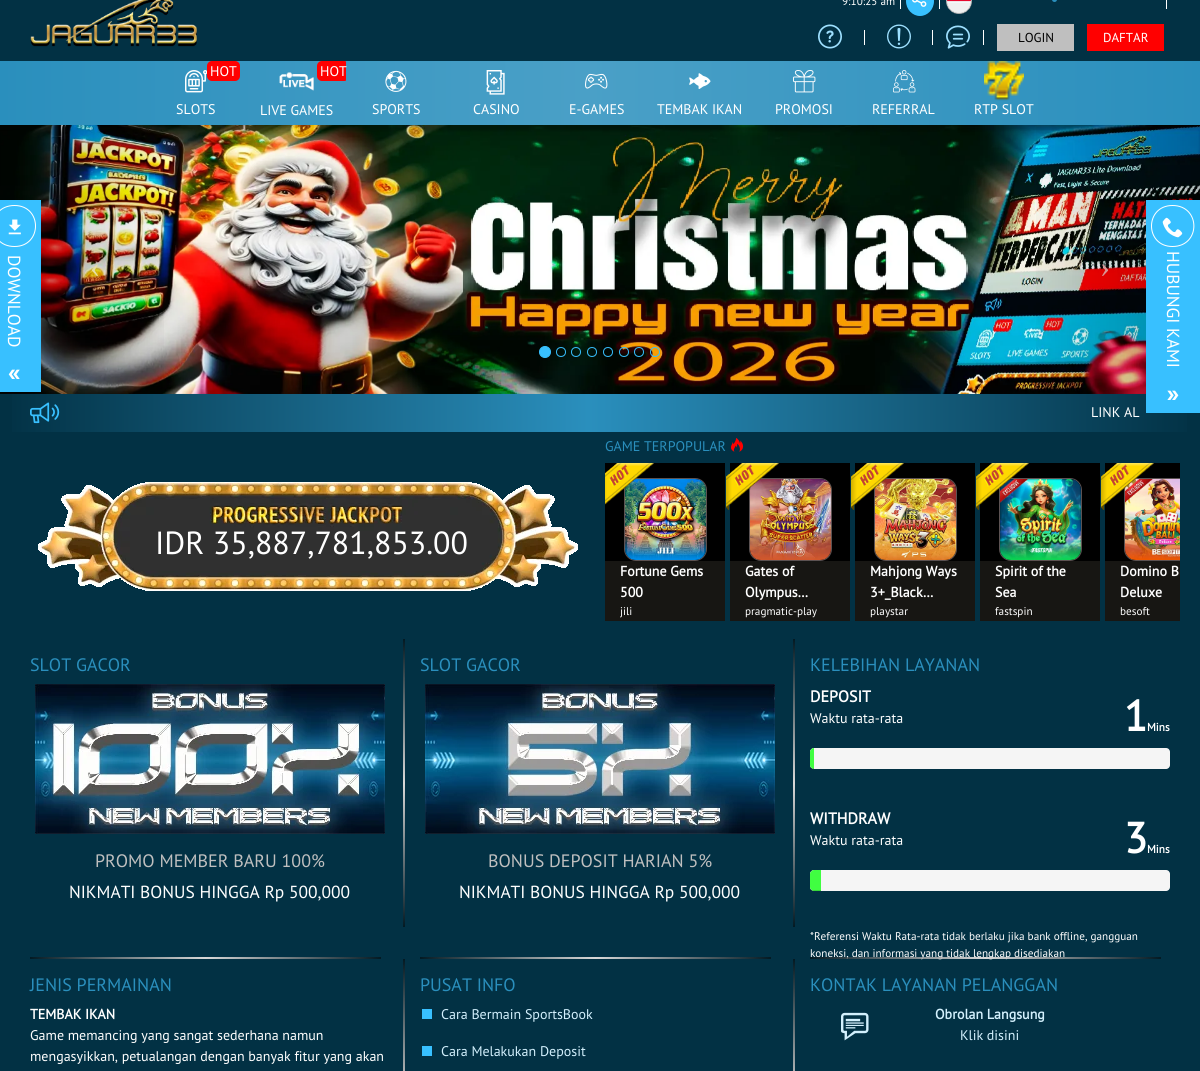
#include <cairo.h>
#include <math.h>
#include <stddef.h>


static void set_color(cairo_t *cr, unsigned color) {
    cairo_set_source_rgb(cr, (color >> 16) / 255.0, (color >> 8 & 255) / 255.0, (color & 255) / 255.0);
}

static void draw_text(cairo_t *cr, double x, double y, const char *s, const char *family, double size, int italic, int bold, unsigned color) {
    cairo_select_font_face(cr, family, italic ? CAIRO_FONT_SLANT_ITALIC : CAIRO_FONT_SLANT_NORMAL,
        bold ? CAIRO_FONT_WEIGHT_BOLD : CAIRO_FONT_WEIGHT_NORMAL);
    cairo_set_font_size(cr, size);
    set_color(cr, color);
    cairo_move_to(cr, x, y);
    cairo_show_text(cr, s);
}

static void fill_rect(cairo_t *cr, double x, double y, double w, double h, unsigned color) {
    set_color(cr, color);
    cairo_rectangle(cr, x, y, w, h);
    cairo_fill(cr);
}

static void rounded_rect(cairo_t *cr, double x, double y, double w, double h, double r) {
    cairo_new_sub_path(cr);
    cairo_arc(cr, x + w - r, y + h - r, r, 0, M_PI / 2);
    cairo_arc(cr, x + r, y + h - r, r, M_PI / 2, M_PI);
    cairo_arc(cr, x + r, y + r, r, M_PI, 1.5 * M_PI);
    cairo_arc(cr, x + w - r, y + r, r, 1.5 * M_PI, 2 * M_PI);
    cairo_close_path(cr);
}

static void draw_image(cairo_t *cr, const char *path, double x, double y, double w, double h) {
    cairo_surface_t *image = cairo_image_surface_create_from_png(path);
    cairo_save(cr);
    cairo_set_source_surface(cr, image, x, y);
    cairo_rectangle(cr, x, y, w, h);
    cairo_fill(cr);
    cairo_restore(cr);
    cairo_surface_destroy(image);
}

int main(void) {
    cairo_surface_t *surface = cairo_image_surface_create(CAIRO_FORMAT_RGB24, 1200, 1071);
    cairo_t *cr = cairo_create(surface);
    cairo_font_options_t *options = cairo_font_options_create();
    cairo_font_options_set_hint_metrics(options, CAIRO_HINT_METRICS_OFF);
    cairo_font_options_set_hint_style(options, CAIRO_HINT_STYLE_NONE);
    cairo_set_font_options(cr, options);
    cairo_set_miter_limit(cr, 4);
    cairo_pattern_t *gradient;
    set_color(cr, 0x023144);
    cairo_paint(cr);
    draw_image(cr, "assets/img1.png", 30, 0, 167, 47);
    draw_text(cr, 842, 5, "9:10:25 am", "PT Sans", 11.2, 0, 0, 0xFFFFFF);
    fill_rect(cr, 900, 0, 1, 9, 0xFFFFFF);
    set_color(cr, 0x38C0FF);
    cairo_new_path(cr);
    cairo_move_to(cr, 920, -14);
    cairo_curve_to(cr, 927.5, -14, 934, -7.5, 934, 1);
    cairo_curve_to(cr, 934, 9.5, 927.5, 16, 920, 16);
    cairo_curve_to(cr, 912.5, 16, 906, 9.5, 906, 1);
    cairo_curve_to(cr, 906, -7.5, 912.5, -14, 920, -14);
    cairo_close_path(cr);
    cairo_fill(cr);
    draw_image(cr, "assets/img2.png", 912, 0, 15, 7);
    fill_rect(cr, 939, 0, 1, 9, 0xFFFFFF);
    set_color(cr, 0x2A8FBD);
    cairo_arc(cr, 1054.5, -0.5, 2.5, 0, 2 * M_PI);
    cairo_fill(cr);
    draw_image(cr, "assets/img3.png", 946, 0, 26, 14);
    fill_rect(cr, 1166, 0, 1, 9, 0xFFFFFF);
    draw_image(cr, "assets/img4.png", 818, 24, 24, 25);
    fill_rect(cr, 864, 30, 1, 15, 0xFFFFFF);
    draw_image(cr, "assets/img5.png", 887, 24, 24, 25);
    fill_rect(cr, 932, 30, 1, 15, 0xFFFFFF);
    draw_image(cr, "assets/img6.png", 946, 25, 24, 24);
    fill_rect(cr, 983, 30, 1, 15, 0xFFFFFF);
    fill_rect(cr, 997, 24, 77, 27, 0xBFBFBF);
    draw_text(cr, 1018, 42, "LOGIN", "PT Sans", 13, 0, 0, 0x000000);
    fill_rect(cr, 1087, 24, 77, 27, 0xFF0000);
    draw_text(cr, 1103, 42, "DAFTAR", "PT Sans", 13, 0, 0, 0xFFFFFF);
    gradient = cairo_pattern_create_linear(0, 93, 1200, 93);
    cairo_pattern_add_color_stop_rgba(gradient, 0, 0.165, 0.561, 0.741, 1);
    cairo_pattern_add_color_stop_rgba(gradient, 0.49, 0.29, 0.627, 0.78, 1);
    cairo_pattern_add_color_stop_rgba(gradient, 1, 0.165, 0.561, 0.741, 1);
    cairo_set_source(cr, gradient);
    cairo_pattern_destroy(gradient);
    cairo_rectangle(cr, 0, 61, 1200, 64);
    cairo_fill(cr);
    draw_image(cr, "assets/img7.png", 185, 70, 22, 23);
    set_color(cr, 0xFF0000);
    rounded_rect(cr, 207, 61, 33, 20, 5);
    cairo_fill(cr);
    draw_text(cr, 210, 76, "HOT", "PT Sans", 14, 0, 0, 0xFFFFFF);
    draw_text(cr, 176, 114, "SLOTS", "PT Sans", 14, 0, 0, 0xFFFFFF);
    draw_image(cr, "assets/img8.png", 279, 72, 35, 19);
    cairo_save(cr);
    cairo_rectangle(cr, 246, 61, 100, 64);
    cairo_clip(cr);
    set_color(cr, 0xFF0000);
    rounded_rect(cr, 317, 61, 32, 20, 5);
    cairo_fill(cr);
    cairo_restore(cr);
    draw_text(cr, 320, 76, "HOT", "PT Sans", 14, 0, 0, 0xFFFFFF);
    draw_text(cr, 260, 115, "LIVE GAMES", "PT Sans", 14, 0, 0, 0xFFFFFF);
    draw_image(cr, "assets/img9.png", 385, 70, 22, 22);
    draw_text(cr, 372, 114, "SPORTS", "PT Sans", 14, 0, 0, 0xFFFFFF);
    draw_image(cr, "assets/img10.png", 486, 70, 19, 25);
    draw_text(cr, 473, 114, "CASINO", "PT Sans", 14, 0, 0, 0xFFFFFF);
    draw_image(cr, "assets/img11.png", 585, 73, 23, 16);
    draw_text(cr, 569, 114, "E-GAMES", "PT Sans", 14, 0, 0, 0xFFFFFF);
    draw_image(cr, "assets/img12.png", 689, 73, 22, 16);
    draw_text(cr, 657, 114, "TEMBAK IKAN", "PT Sans", 14, 0, 0, 0xFFFFFF);
    draw_image(cr, "assets/img13.png", 793, 70, 23, 23);
    draw_text(cr, 775, 114, "PROMOSI", "PT Sans", 14, 0, 0, 0xFFFFFF);
    draw_image(cr, "assets/img14.png", 893, 70, 23, 23);
    draw_text(cr, 872, 114, "REFERRAL", "PT Sans", 14, 0, 0, 0xFFFFFF);
    draw_image(cr, "assets/img15.png", 984, 61, 40, 40);
    draw_text(cr, 974, 114, "RTP SLOT", "PT Sans", 14, 0, 0, 0xFFFFFF);
    draw_image(cr, "assets/img20.png", 0, 125, 1200, 269);
    gradient = cairo_pattern_create_linear(0, 260, 180, 260);
    cairo_pattern_add_color_stop_rgba(gradient, 0, 0, 0, 0, 0.25);
    cairo_pattern_add_color_stop_rgba(gradient, 1, 0, 0, 0, 0);
    cairo_set_source(cr, gradient);
    cairo_pattern_destroy(gradient);
    cairo_rectangle(cr, 0, 125, 164, 269);
    cairo_fill(cr);
    fill_rect(cr, 0, 200, 41, 192, 0x38C0FF);
    cairo_new_path(cr);
    cairo_move_to(cr, 14.5, 205.5);
    cairo_curve_to(cr, 42.5, 205.5, 42.5, 246.5, 14.5, 246.5);
    cairo_curve_to(cr, -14, 246.5, -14, 205.5, 14.5, 205.5);
    cairo_close_path(cr);
    set_color(cr, 0xFFFFFF);
    cairo_set_line_width(cr, 1);
    cairo_stroke(cr);
    draw_image(cr, "assets/img16.png", 8, 219, 13, 16);
    cairo_save(cr);
    cairo_translate(cr, 8, 255);
    cairo_rotate(cr, 90 * M_PI / 180);
    draw_text(cr, 0, 0, "DOWNLOAD", "PT Sans", 17.5, 0, 0, 0xFFFFFF);
    cairo_restore(cr);
    draw_image(cr, "assets/img17.png", 8, 369, 12, 10);
    gradient = cairo_pattern_create_linear(1020, 260, 1200, 260);
    cairo_pattern_add_color_stop_rgba(gradient, 0, 0, 0, 0, 0);
    cairo_pattern_add_color_stop_rgba(gradient, 1, 0, 0, 0, 0.25);
    cairo_set_source(cr, gradient);
    cairo_pattern_destroy(gradient);
    cairo_rectangle(cr, 1036, 125, 164, 269);
    cairo_fill(cr);
    gradient = cairo_pattern_create_linear(0, 413, 1200, 413);
    cairo_pattern_add_color_stop_rgba(gradient, 0, 0.008, 0.192, 0.267, 1);
    cairo_pattern_add_color_stop_rgba(gradient, 0.49, 0.165, 0.561, 0.741, 1);
    cairo_pattern_add_color_stop_rgba(gradient, 1, 0.008, 0.192, 0.267, 1);
    cairo_set_source(cr, gradient);
    cairo_pattern_destroy(gradient);
    cairo_rectangle(cr, 12, 394, 1175, 38);
    cairo_fill(cr);
    fill_rect(cr, 1146, 200, 54, 213, 0x38C0FF);
    cairo_new_path(cr);
    cairo_move_to(cr, 1172.5, 205.5);
    cairo_curve_to(cr, 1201, 205.5, 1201, 246.5, 1172.5, 246.5);
    cairo_curve_to(cr, 1144.5, 246.5, 1144.5, 205.5, 1172.5, 205.5);
    cairo_close_path(cr);
    set_color(cr, 0xFFFFFF);
    cairo_stroke(cr);
    draw_image(cr, "assets/img18.png", 1162, 217, 21, 21);
    cairo_save(cr);
    cairo_translate(cr, 1167, 251);
    cairo_rotate(cr, 90 * M_PI / 180);
    draw_text(cr, 0, 0, "HUBUNGI KAMI", "PT Sans", 17.5, 0, 0, 0xFFFFFF);
    cairo_restore(cr);
    draw_image(cr, "assets/img19.png", 1167, 390, 12, 10);
    draw_text(cr, 90, 277, "‹", "Liberation Serif", 30, 0, 0, 0xE7DEA5);
    draw_text(cr, 1100, 277, "›", "Liberation Serif", 30, 0, 0, 0xD99494);
    set_color(cr, 0x38C0FF);
    cairo_new_path(cr);
    cairo_arc(cr, 545, 352, 5.5, 0, 2 * M_PI);
    cairo_fill_preserve(cr);
    cairo_stroke(cr);
    cairo_arc(cr, 561, 352, 4.5, 0, 2 * M_PI);
    cairo_stroke(cr);
    cairo_arc(cr, 576, 352, 4.5, 0, 2 * M_PI);
    cairo_stroke(cr);
    cairo_arc(cr, 592, 352, 4.5, 0, 2 * M_PI);
    cairo_stroke(cr);
    cairo_arc(cr, 608, 352, 4.5, 0, 2 * M_PI);
    cairo_stroke(cr);
    cairo_arc(cr, 624, 352, 4.5, 0, 2 * M_PI);
    cairo_stroke(cr);
    cairo_arc(cr, 639, 352, 4.5, 0, 2 * M_PI);
    cairo_stroke(cr);
    cairo_arc(cr, 655, 352, 4.5, 0, 2 * M_PI);
    cairo_stroke(cr);
    draw_image(cr, "assets/img21.png", 30, 402, 30, 22);
    draw_text(cr, 1091, 417, "LINK AL", "PT Sans", 14, 0, 0, 0xFFFFFF);
    draw_image(cr, "assets/img22.png", 38, 482, 540, 109);
    draw_text(cr, 155, 554, "IDR 35,887,781,853.00", "PT Sans", 32, 0, 0, 0xFFFFFF);
    draw_text(cr, 605, 451, "GAME TERPOPULAR", "PT Sans", 14, 0, 0, 0x2A8FBD);
    draw_image(cr, "assets/img23.png", 731, 438, 13, 14);
    fill_rect(cr, 605, 463, 120, 98, 0x000000);
    rounded_rect(cr, 624.5, 478.5, 82, 82, 11.5);
    set_color(cr, 0x5C5252);
    cairo_stroke(cr);
    draw_image(cr, "assets/img30.png", 625, 479, 81, 81);
    draw_image(cr, "assets/img24.png", 605, 463, 49, 42);
    fill_rect(cr, 730, 463, 120, 98, 0x000000);
    rounded_rect(cr, 749.5, 478.5, 82, 82, 11.5);
    set_color(cr, 0x5C5252);
    cairo_stroke(cr);
    draw_image(cr, "assets/img32.png", 750, 479, 81, 81);
    draw_image(cr, "assets/img25.png", 726, 463, 53, 47);
    fill_rect(cr, 855, 463, 120, 98, 0x000000);
    rounded_rect(cr, 874.5, 478.5, 82, 82, 11.5);
    set_color(cr, 0x5C5252);
    cairo_stroke(cr);
    draw_image(cr, "assets/img34.png", 875, 479, 81, 81);
    draw_image(cr, "assets/img26.png", 851, 463, 53, 47);
    fill_rect(cr, 980, 463, 120, 98, 0x000000);
    rounded_rect(cr, 999.5, 478.5, 82, 82, 11.5);
    set_color(cr, 0x5C5252);
    cairo_stroke(cr);
    draw_image(cr, "assets/img36.png", 1000, 479, 81, 81);
    draw_image(cr, "assets/img27.png", 976, 463, 53, 47);
    fill_rect(cr, 1105, 463, 75, 98, 0x000000);
    cairo_save(cr);
    cairo_rectangle(cr, 605, 463, 575, 171);
    cairo_clip(cr);
    rounded_rect(cr, 1124.5, 478.5, 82, 82, 11.5);
    set_color(cr, 0x5C5252);
    cairo_stroke(cr);
    cairo_restore(cr);
    draw_image(cr, "assets/img38.png", 1125, 479, 55, 81);
    draw_image(cr, "assets/img28.png", 1101, 463, 53, 47);
    draw_image(cr, "assets/img29.png", 605, 463, 49, 42);
    fill_rect(cr, 605, 561, 120, 60, 0x171613);
    draw_text(cr, 620, 576, "Fortune Gems", "PT Sans", 14, 0, 1, 0xFFFFFF);
    draw_text(cr, 620, 597, "500", "PT Sans", 14, 0, 1, 0xFFFFFF);
    draw_text(cr, 620, 615, "jili", "PT Sans", 11.2, 0, 0, 0xFFFFFF);
    draw_image(cr, "assets/img31.png", 726, 463, 53, 47);
    fill_rect(cr, 730, 561, 120, 60, 0x171613);
    draw_text(cr, 745, 576, "Gates of", "PT Sans", 14, 0, 1, 0xFFFFFF);
    draw_text(cr, 745, 597, "Olympus…", "PT Sans", 14, 0, 1, 0xFFFFFF);
    draw_text(cr, 745, 615, "pragmatic-play", "PT Sans", 11.2, 0, 0, 0xFFFFFF);
    draw_image(cr, "assets/img33.png", 851, 463, 53, 47);
    fill_rect(cr, 855, 561, 120, 60, 0x171613);
    draw_text(cr, 870, 576, "Mahjong Ways", "PT Sans", 14, 0, 1, 0xFFFFFF);
    draw_text(cr, 870, 597, "3+_Black…", "PT Sans", 14, 0, 1, 0xFFFFFF);
    draw_text(cr, 870, 615, "playstar", "PT Sans", 11.2, 0, 0, 0xFFFFFF);
    draw_image(cr, "assets/img35.png", 976, 463, 53, 47);
    fill_rect(cr, 980, 561, 120, 60, 0x171613);
    draw_text(cr, 995, 576, "Spirit of the", "PT Sans", 14, 0, 1, 0xFFFFFF);
    draw_text(cr, 995, 597, "Sea", "PT Sans", 14, 0, 1, 0xFFFFFF);
    draw_text(cr, 995, 615, "fastspin", "PT Sans", 11.2, 0, 0, 0xFFFFFF);
    draw_image(cr, "assets/img37.png", 1101, 463, 53, 47);
    fill_rect(cr, 1105, 561, 75, 60, 0x171613);
    draw_text(cr, 1120, 576, "Domino B", "PT Sans", 14, 0, 1, 0xFFFFFF);
    draw_text(cr, 1120, 597, "Deluxe", "PT Sans", 14, 0, 1, 0xFFFFFF);
    draw_text(cr, 1120, 615, "besoft", "PT Sans", 11.2, 0, 0, 0xFFFFFF);
    draw_text(cr, 30, 671, "SLOT GACOR", "PT Sans", 18, 0, 0, 0x2A8FBD);
    draw_image(cr, "assets/img39.png", 403, 639, 2, 288);
    draw_image(cr, "assets/img40.png", 35, 684, 350, 150);
    draw_text(cr, 95, 867, "PROMO MEMBER BARU 100%", "PT Sans", 18, 0, 0, 0xBFBFBF);
    draw_text(cr, 69, 898, "NIKMATI BONUS HINGGA Rp 500,000", "PT Sans", 17.5, 0, 0, 0xFFFFFF);
    draw_image(cr, "assets/img41.png", 30, 957, 351, 2);
    draw_text(cr, 420, 671, "SLOT GACOR", "PT Sans", 18, 0, 0, 0x2A8FBD);
    draw_image(cr, "assets/img42.png", 793, 639, 2, 288);
    draw_image(cr, "assets/img43.png", 425, 684, 350, 150);
    draw_text(cr, 488, 867, "BONUS DEPOSIT HARIAN 5%", "PT Sans", 18, 0, 0, 0xBFBFBF);
    draw_text(cr, 459, 898, "NIKMATI BONUS HINGGA Rp 500,000", "PT Sans", 17.5, 0, 0, 0xFFFFFF);
    draw_image(cr, "assets/img44.png", 420, 957, 351, 2);
    draw_text(cr, 810, 671, "KELEBIHAN LAYANAN", "PT Sans", 18, 0, 0, 0x2A8FBD);
    draw_text(cr, 810, 702, "DEPOSIT", "PT Sans", 16, 0, 1, 0xFFFFFF);
    draw_text(cr, 810, 723, "Waktu rata-rata", "PT Sans", 14, 0, 0, 0xFFFFFF);
    draw_text(cr, 1124, 731, "1", "PT Sans", 43, 0, 1, 0xFFFFFF);
    draw_text(cr, 1147, 731, "Mins", "PT Sans", 11.2, 0, 1, 0xFFFFFF);
    set_color(cr, 0xF5F5F5);
    rounded_rect(cr, 810, 748, 360, 21, 4);
    cairo_fill(cr);
    set_color(cr, 0x40FE41);
    cairo_new_path(cr);
    cairo_move_to(cr, 814, 748);
    cairo_line_to(cr, 814, 769);
    cairo_curve_to(cr, 812, 769, 810, 767, 810, 765);
    cairo_line_to(cr, 810, 752);
    cairo_curve_to(cr, 810, 750, 812, 748, 814, 748);
    cairo_close_path(cr);
    cairo_fill(cr);
    cairo_set_source_rgba(cr, 0, 0, 0, 0.15);
    cairo_rectangle(cr, 810, 768, 4, 1);
    cairo_fill(cr);
    draw_text(cr, 810, 824, "WITHDRAW", "PT Sans", 16, 0, 1, 0xFFFFFF);
    draw_text(cr, 810, 845, "Waktu rata-rata", "PT Sans", 14, 0, 0, 0xFFFFFF);
    draw_text(cr, 1124, 853, "3", "PT Sans", 43, 0, 1, 0xFFFFFF);
    draw_text(cr, 1147, 853, "Mins", "PT Sans", 11.2, 0, 1, 0xFFFFFF);
    set_color(cr, 0xF5F5F5);
    rounded_rect(cr, 810, 870, 360, 21, 4);
    cairo_fill(cr);
    set_color(cr, 0x40FE41);
    cairo_new_path(cr);
    cairo_move_to(cr, 814, 870);
    cairo_line_to(cr, 821, 870);
    cairo_line_to(cr, 821, 891);
    cairo_line_to(cr, 814, 891);
    cairo_curve_to(cr, 812, 891, 810, 889, 810, 887);
    cairo_line_to(cr, 810, 874);
    cairo_curve_to(cr, 810, 872, 812, 870, 814, 870);
    cairo_close_path(cr);
    cairo_fill(cr);
    cairo_set_source_rgba(cr, 0, 0, 0, 0.15);
    cairo_rectangle(cr, 810, 890, 11, 1);
    cairo_fill(cr);
    draw_text(cr, 810, 940, "*Referensi Waktu Rata-rata tidak berlaku jika bank offline, gangguan", "PT Sans", 11.2, 0, 0, 0xFFFFFF);
    draw_text(cr, 810, 957, "koneksi, dan informasi yang tidak lengkap disediakan", "PT Sans", 11.2, 0, 0, 0xFFFFFF);
    draw_image(cr, "assets/img45.png", 810, 957, 351, 2);
    draw_text(cr, 30, 991, "JENIS PERMAINAN", "PT Sans", 18, 0, 0, 0x2A8FBD);
    draw_image(cr, "assets/img46.png", 403, 959, 2, 112);
    draw_text(cr, 30, 1019, "TEMBAK IKAN", "PT Sans", 14, 0, 1, 0xFFFFFF);
    draw_text(cr, 30, 1040, "Game memancing yang sangat sederhana namun", "PT Sans", 14, 0, 0, 0xFFFFFF);
    draw_text(cr, 30, 1061, "mengasyikkan, petualangan dengan banyak fitur yang akan", "PT Sans", 14, 0, 0, 0xFFFFFF);
    draw_text(cr, 420, 991, "PUSAT INFO", "PT Sans", 18, 0, 0, 0x2A8FBD);
    draw_image(cr, "assets/img47.png", 793, 959, 2, 112);
    fill_rect(cr, 422, 1009, 10, 10, 0x38C0FF);
    draw_text(cr, 441, 1019, "Cara Bermain SportsBook", "PT Sans", 14, 0, 0, 0xD3F0FD);
    fill_rect(cr, 422, 1046, 10, 10, 0x38C0FF);
    draw_text(cr, 441, 1056, "Cara Melakukan Deposit", "PT Sans", 14, 0, 0, 0xD3F0FD);
    draw_text(cr, 810, 991, "KONTAK LAYANAN PELANGGAN", "PT Sans", 18, 0, 0, 0x2A8FBD);
    draw_image(cr, "assets/img48.png", 841, 1012, 28, 29);
    draw_text(cr, 935, 1019, "Obrolan Langsung", "PT Sans", 14, 0, 1, 0xD3F0FD);
    draw_text(cr, 960, 1040, "Klik disini", "PT Sans", 14, 0, 0, 0xD3F0FD);
    cairo_surface_write_to_png(surface, "output.png");
    cairo_font_options_destroy(options);
    cairo_destroy(cr);
    cairo_surface_destroy(surface);
    return 0;
}
